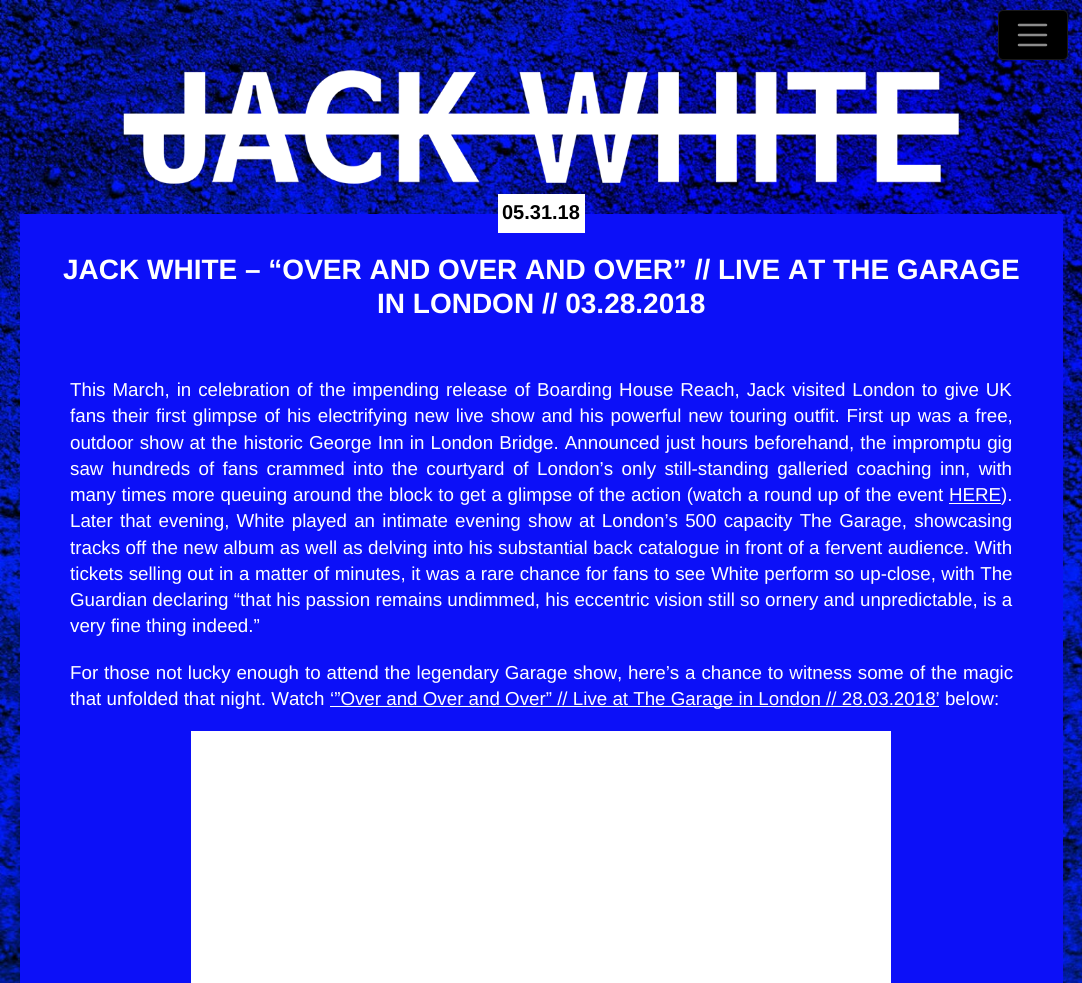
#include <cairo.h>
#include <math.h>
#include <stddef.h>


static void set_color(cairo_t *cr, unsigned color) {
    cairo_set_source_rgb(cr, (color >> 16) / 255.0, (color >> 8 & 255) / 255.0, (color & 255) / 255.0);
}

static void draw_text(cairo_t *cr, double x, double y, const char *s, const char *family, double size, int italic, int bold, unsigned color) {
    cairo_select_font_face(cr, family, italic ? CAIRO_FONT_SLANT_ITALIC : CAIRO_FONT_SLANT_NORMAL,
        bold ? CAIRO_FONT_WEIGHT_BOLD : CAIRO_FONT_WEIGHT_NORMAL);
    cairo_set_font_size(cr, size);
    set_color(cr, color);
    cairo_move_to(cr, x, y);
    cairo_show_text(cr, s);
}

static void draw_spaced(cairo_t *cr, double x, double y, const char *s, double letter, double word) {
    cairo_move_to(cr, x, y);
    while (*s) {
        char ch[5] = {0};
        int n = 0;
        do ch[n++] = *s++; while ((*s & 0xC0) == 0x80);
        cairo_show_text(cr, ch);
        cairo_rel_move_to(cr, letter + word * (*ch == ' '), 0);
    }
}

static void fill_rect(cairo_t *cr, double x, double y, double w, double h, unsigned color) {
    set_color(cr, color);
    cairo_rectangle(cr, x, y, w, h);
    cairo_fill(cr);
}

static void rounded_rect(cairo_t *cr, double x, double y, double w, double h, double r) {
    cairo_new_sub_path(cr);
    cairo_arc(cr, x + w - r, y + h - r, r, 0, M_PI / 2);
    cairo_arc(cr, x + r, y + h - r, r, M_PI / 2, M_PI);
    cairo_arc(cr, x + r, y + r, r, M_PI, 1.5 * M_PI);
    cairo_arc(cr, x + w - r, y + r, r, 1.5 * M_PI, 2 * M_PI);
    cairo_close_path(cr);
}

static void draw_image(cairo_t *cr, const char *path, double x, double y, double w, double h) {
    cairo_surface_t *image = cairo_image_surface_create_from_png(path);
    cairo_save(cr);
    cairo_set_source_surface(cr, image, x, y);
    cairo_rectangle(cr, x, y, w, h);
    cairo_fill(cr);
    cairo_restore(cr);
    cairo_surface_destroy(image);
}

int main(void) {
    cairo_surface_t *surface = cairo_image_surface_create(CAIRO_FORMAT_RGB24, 1082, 983);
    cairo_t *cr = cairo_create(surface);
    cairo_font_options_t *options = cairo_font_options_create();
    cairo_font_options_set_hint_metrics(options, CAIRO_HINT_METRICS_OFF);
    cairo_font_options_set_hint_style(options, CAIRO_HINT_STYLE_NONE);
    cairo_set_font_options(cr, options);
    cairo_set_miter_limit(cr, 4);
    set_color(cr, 0xFFFFFF);
    cairo_paint(cr);
    draw_image(cr, "assets/img1.png", 0, 0, 1082, 983);
    set_color(cr, 0x000000);
    rounded_rect(cr, 998, 10, 70, 50, 5);
    cairo_fill(cr);
    rounded_rect(cr, 998.5, 10.5, 69, 49, 4.5);
    cairo_set_source_rgba(cr, 1, 1, 1, 0.1);
    cairo_set_line_width(cr, 1);
    cairo_stroke(cr);
    cairo_new_path(cr);
    cairo_move_to(cr, 1019, 25);
    cairo_line_to(cr, 1046, 25);
    cairo_move_to(cr, 1019, 35);
    cairo_line_to(cr, 1046, 35);
    cairo_move_to(cr, 1019, 45);
    cairo_line_to(cr, 1046, 45);
    set_color(cr, 0x8C8C8C);
    cairo_set_line_width(cr, 2.5);
    cairo_set_line_cap(cr, CAIRO_LINE_CAP_ROUND);
    cairo_stroke(cr);
    draw_image(cr, "assets/img2.png", 123, 70, 836, 114);
    fill_rect(cr, 20, 214, 1043, 769, 0x0C10F8);
    fill_rect(cr, 498, 194, 87, 39, 0xFFFFFF);
    draw_text(cr, 502, 219, "05.31.18", "Liberation Sans", 20, 0, 1, 0x000000);
    draw_text(cr, 63, 279, "JACK WHITE – “OVER AND OVER AND OVER” // LIVE AT THE GARAGE", "Liberation Sans", 28, 0, 1, 0xFFFFFF);
    draw_text(cr, 377, 313, "IN LONDON // 03.28.2018", "Liberation Sans", 28, 0, 1, 0xFFFFFF);
    cairo_select_font_face(cr, "Liberation Sans", CAIRO_FONT_SLANT_NORMAL, CAIRO_FONT_WEIGHT_NORMAL);
    cairo_set_font_size(cr, 18.75);
    draw_spaced(cr, 70, 396, "This March, in celebration of the impending release of Boarding House Reach, Jack visited London to give UK", 0, 1.75);
    draw_spaced(cr, 70, 422, "fans their first glimpse of his electrifying new live show and his powerful new touring outfit. First up was a free,", 0, 1.7);
    draw_spaced(cr, 70, 449, "outdoor show at the historic George Inn in London Bridge. Announced just hours beforehand, the impromptu gig", 0, 0.9);
    draw_spaced(cr, 70, 475, "saw hundreds of fans crammed into the courtyard of London’s only still-standing galleried coaching inn, with", 0, 3.25);
    draw_spaced(cr, 70, 501, "many times more queuing around the block to get a glimpse of the action (watch a round up of the event", 0, 0.5);
    fill_rect(cr, 949, 503, 52, 1, 0xFFFFFF);
    draw_text(cr, 949, 501, "HERE).", "Liberation Sans", 18.75, 0, 0, 0xFFFFFF);
    draw_spaced(cr, 70, 527, "Later that evening, White played an intimate evening show at London’s 500 capacity The Garage, showcasing", 0, 2);
    draw_spaced(cr, 70, 554, "tracks off the new album as well as delving into his substantial back catalogue in front of a fervent audience. With", 0, 0.25);
    draw_spaced(cr, 70, 580, "tickets selling out in a matter of minutes, it was a rare chance for fans to see White perform so up-close, with The", 0, 0.3);
    draw_text(cr, 70, 606, "Guardian declaring “that his passion remains undimmed, his eccentric vision still so ornery and unpredictable, is a", "Liberation Sans", 18.75, 0, 0, 0xFFFFFF);
    draw_text(cr, 70, 632, "very fine thing indeed.”", "Liberation Sans", 18.75, 0, 0, 0xFFFFFF);
    draw_spaced(cr, 70, 679, "For those not lucky enough to attend the legendary Garage show, here’s a chance to witness some of the magic", 0, 0.7);
    draw_text(cr, 70, 705, "that unfolded that night. Watch", "Liberation Sans", 18.75, 0, 0, 0xFFFFFF);
    fill_rect(cr, 330, 706, 609, 1, 0xFFFFFF);
    draw_text(cr, 330, 705, "‘”Over and Over and Over” // Live at The Garage in London // 28.03.2018’ below:", "Liberation Sans", 18.75, 0, 0, 0xFFFFFF);
    fill_rect(cr, 191, 731, 700, 252, 0xFFFFFF);
    cairo_surface_write_to_png(surface, "output.png");
    cairo_font_options_destroy(options);
    cairo_destroy(cr);
    cairo_surface_destroy(surface);
    return 0;
}
